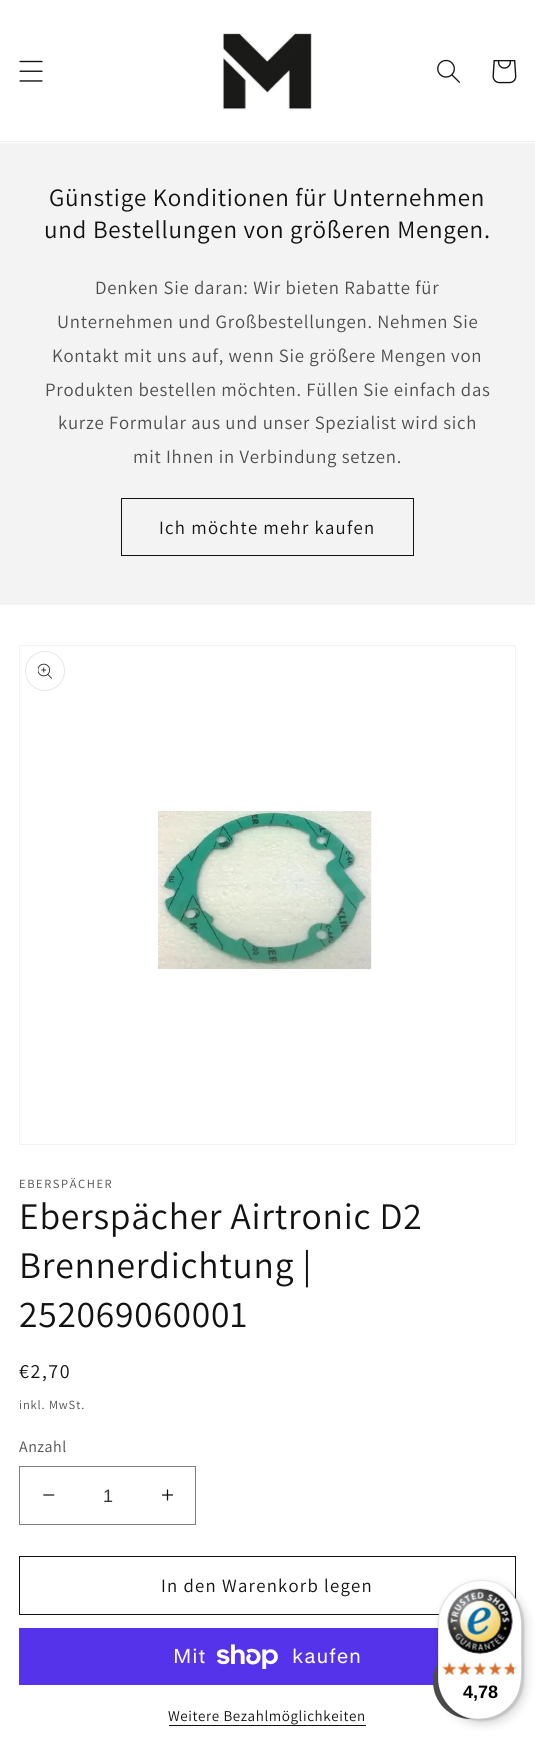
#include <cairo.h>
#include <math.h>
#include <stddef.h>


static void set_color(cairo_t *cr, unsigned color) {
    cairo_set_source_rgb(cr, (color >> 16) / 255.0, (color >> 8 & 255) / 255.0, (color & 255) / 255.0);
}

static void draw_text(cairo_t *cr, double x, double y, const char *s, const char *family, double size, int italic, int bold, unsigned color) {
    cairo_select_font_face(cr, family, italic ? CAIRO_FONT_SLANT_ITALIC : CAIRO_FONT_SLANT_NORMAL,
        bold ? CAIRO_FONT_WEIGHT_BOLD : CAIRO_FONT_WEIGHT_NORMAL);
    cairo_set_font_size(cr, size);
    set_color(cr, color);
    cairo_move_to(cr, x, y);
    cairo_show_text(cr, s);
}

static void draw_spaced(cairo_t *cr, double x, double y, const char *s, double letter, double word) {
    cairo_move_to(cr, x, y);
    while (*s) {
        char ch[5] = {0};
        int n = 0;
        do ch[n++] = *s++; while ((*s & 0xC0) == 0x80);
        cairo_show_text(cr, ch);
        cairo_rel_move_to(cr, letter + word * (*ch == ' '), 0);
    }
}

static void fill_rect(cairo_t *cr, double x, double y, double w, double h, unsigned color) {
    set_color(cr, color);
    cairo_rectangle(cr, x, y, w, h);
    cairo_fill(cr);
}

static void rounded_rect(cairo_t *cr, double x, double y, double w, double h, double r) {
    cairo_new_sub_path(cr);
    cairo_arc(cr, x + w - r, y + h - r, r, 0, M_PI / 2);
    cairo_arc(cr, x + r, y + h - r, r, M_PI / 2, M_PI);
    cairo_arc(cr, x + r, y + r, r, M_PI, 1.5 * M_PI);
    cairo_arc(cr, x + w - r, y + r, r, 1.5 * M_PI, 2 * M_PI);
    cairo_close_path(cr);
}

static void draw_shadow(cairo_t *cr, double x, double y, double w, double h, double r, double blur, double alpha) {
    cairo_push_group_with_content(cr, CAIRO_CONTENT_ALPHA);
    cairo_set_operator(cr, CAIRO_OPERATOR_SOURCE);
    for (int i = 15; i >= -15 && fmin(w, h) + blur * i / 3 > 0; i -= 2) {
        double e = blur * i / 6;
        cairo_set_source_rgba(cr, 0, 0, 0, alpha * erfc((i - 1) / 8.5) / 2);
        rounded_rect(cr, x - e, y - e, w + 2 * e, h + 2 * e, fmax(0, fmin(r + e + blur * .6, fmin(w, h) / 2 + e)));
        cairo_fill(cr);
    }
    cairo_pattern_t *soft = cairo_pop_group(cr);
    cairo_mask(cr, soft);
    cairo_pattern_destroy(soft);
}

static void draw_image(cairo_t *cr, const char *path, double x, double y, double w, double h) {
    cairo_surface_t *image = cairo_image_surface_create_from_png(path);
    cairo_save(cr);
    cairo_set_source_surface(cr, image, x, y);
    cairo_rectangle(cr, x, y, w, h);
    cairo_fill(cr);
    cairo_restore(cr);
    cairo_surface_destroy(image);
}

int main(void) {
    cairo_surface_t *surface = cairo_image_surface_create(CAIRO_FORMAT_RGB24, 535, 1744);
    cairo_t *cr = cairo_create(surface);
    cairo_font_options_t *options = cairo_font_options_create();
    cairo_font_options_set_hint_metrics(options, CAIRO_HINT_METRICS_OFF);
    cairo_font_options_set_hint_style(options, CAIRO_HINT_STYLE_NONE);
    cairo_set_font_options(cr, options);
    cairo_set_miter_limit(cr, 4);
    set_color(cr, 0xFFFFFF);
    cairo_paint(cr);
    fill_rect(cr, 0, 141, 535, 1, 0xECECEC);
    draw_image(cr, "assets/img1.png", 19, 60, 24, 22);
    draw_image(cr, "assets/img2.png", 223, 33, 89, 77);
    draw_image(cr, "assets/img3.png", 437, 59, 23, 24);
    draw_image(cr, "assets/img4.png", 492, 60, 25, 24);
    fill_rect(cr, 0, 143, 535, 462, 0xF3F3F3);
    cairo_select_font_face(cr, "Assistant", CAIRO_FONT_SLANT_NORMAL, CAIRO_FONT_WEIGHT_NORMAL);
    cairo_set_font_size(cr, 25);
    set_color(cr, 0x121212);
    draw_spaced(cr, 49, 206, "Günstige Konditionen für Unternehmen", 0.75, 0);
    draw_spaced(cr, 44, 238, "und Bestellungen von größeren Mengen.", 0.75, 0);
    cairo_set_font_size(cr, 18.75);
    set_color(cr, 0x4D4D4D);
    draw_spaced(cr, 95, 294, "Denken Sie daran: Wir bieten Rabatte für", 0.75, 0);
    draw_spaced(cr, 57, 328, "Unternehmen und Großbestellungen. Nehmen Sie", 0.75, 0);
    draw_spaced(cr, 52, 362, "Kontakt mit uns auf, wenn Sie größere Mengen von", 0.75, 0);
    draw_spaced(cr, 45, 396, "Produkten bestellen möchten. Füllen Sie einfach das", 0.75, 0);
    draw_spaced(cr, 58, 429, "kurze Formular aus und unser Spezialist wird sich", 0.75, 0);
    draw_spaced(cr, 133, 463, "mit Ihnen in Verbindung setzen.", 0.75, 0);
    cairo_rectangle(cr, 121.5, 498.5, 292, 57);
    set_color(cr, 0x121212);
    cairo_set_line_width(cr, 1);
    cairo_stroke(cr);
    draw_spaced(cr, 159, 534, "Ich möchte mehr kaufen", 1.25, 0);
    cairo_rectangle(cr, 19.5, 645.5, 496, 499);
    set_color(cr, 0xF3F3F3);
    cairo_stroke(cr);
    draw_image(cr, "assets/img5.png", 157, 811, 215, 163);
    cairo_arc(cr, 45, 671, 19.5, 0, 2 * M_PI);
    set_color(cr, 0xE7E7E7);
    cairo_stroke(cr);
    draw_image(cr, "assets/img6.png", 38, 663, 14, 16);
    cairo_set_font_size(cr, 12.5);
    set_color(cr, 0x4D4D4D);
    draw_spaced(cr, 19, 1188, "EBERSPÄCHER", 1.6, 0);
    cairo_set_font_size(cr, 37.5);
    set_color(cr, 0x121212);
    draw_spaced(cr, 19, 1229, "Eberspächer Airtronic D2", 0.75, 0);
    draw_spaced(cr, 19, 1278, "Brennerdichtung |", 0.75, 0);
    draw_spaced(cr, 19, 1327, "252069060001", 0.75, 0);
    cairo_set_font_size(cr, 20);
    draw_spaced(cr, 19, 1378, "€2,70", 1.6, 0);
    cairo_set_font_size(cr, 12.5);
    set_color(cr, 0x4D4D4D);
    draw_spaced(cr, 19, 1409, "inkl. MwSt.", 0.9, 0);
    cairo_set_font_size(cr, 16);
    draw_spaced(cr, 19, 1452, "Anzahl", 0.5, 0);
    draw_image(cr, "assets/img7.png", 43, 1494, 12, 2);
    draw_image(cr, "assets/img8.png", 162, 1489, 12, 12);
    cairo_rectangle(cr, 19.5, 1466.5, 176, 58);
    set_color(cr, 0x7D7D7D);
    cairo_stroke(cr);
    draw_text(cr, 103, 1502, "1", "Liberation Sans", 18, 0, 0, 0x363636);
    cairo_rectangle(cr, 19.5, 1556.5, 496, 58);
    set_color(cr, 0x121212);
    cairo_stroke(cr);
    cairo_select_font_face(cr, "Assistant", CAIRO_FONT_SLANT_NORMAL, CAIRO_FONT_WEIGHT_NORMAL);
    cairo_set_font_size(cr, 18.75);
    draw_spaced(cr, 161, 1592, "In den Warenkorb legen", 1.25, 0);
    fill_rect(cr, 19, 1628, 419, 57, 0x5433EB);
    cairo_select_font_face(cr, "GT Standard", CAIRO_FONT_SLANT_NORMAL, CAIRO_FONT_WEIGHT_NORMAL);
    cairo_set_font_size(cr, 20);
    set_color(cr, 0xFFFFFF);
    draw_spaced(cr, 173, 1663, "Mit", 0.75, 0);
    draw_image(cr, "assets/img9.png", 216, 1644, 62, 25);
    draw_spaced(cr, 292, 1663, "kaufen", 0.75, 0);
    cairo_select_font_face(cr, "Assistant", CAIRO_FONT_SLANT_NORMAL, CAIRO_FONT_WEIGHT_NORMAL);
    cairo_set_font_size(cr, 15);
    set_color(cr, 0x121212);
    draw_spaced(cr, 168, 1721, "Weitere Bezahlmöglichkeiten", 0.6, 0);
    fill_rect(cr, 169, 1725, 197, 1, 0x121212);
    set_color(cr, 0x4D4D4D);
    cairo_new_path(cr);
    cairo_arc(cr, 470.5, 1681.5, 37.5, 0, 2 * M_PI);
    cairo_fill(cr);
    set_color(cr, 0x000000);
    draw_shadow(cr, 441, 1584, 85, 140, 42.5, 5, 0.15);
    draw_shadow(cr, 439, 1581, 85, 140, 42.5, 1, 0.15);
    set_color(cr, 0xFFFFFF);
    rounded_rect(cr, 438, 1580, 85, 140, 42.5);
    cairo_fill(cr);
    cairo_set_source_rgba(cr, 0, 0, 0, 0.1);
    cairo_new_path(cr);
    cairo_move_to(cr, 481, 1581);
    cairo_curve_to(cr, 494, 1581, 505, 1586, 513, 1595);
    cairo_curve_to(cr, 492, 1571, 454, 1577, 441, 1606);
    cairo_curve_to(cr, 436, 1618, 438, 1636, 438, 1650);
    cairo_curve_to(cr, 438, 1669, 435, 1690, 449, 1706);
    cairo_curve_to(cr, 443, 1698, 439, 1689, 439, 1679);
    cairo_line_to(cr, 439, 1624);
    cairo_curve_to(cr, 439, 1600, 458, 1581, 481, 1581);
    cairo_close_path(cr);
    cairo_fill(cr);
    cairo_set_source_rgba(cr, 0, 0, 0, 0.2);
    cairo_new_path(cr);
    cairo_move_to(cr, 459, 1714);
    cairo_curve_to(cr, 484, 1729, 516, 1715, 522, 1686);
    cairo_curve_to(cr, 524, 1676, 523, 1661, 523, 1650);
    cairo_curve_to(cr, 523, 1624, 527, 1599, 500, 1585);
    cairo_curve_to(cr, 525, 1599, 521, 1624, 521, 1648);
    cairo_curve_to(cr, 521, 1659, 522, 1674, 520, 1685);
    cairo_curve_to(cr, 515, 1713, 484, 1727, 459, 1714);
    cairo_close_path(cr);
    cairo_fill(cr);
    cairo_set_source_rgba(cr, 0.196, 0.196, 0.196, 0.2);
    cairo_new_path(cr);
    cairo_move_to(cr, 452, 1709);
    cairo_curve_to(cr, 460, 1716, 470, 1720, 480, 1720);
    cairo_curve_to(cr, 504, 1720, 523, 1701, 523, 1678);
    cairo_line_to(cr, 523, 1622);
    cairo_curve_to(cr, 523, 1610, 517, 1598, 508, 1590);
    cairo_curve_to(cr, 526, 1606, 522, 1628, 522, 1650);
    cairo_curve_to(cr, 522, 1663, 524, 1681, 519, 1693);
    cairo_curve_to(cr, 507, 1719, 474, 1727, 452, 1709);
    cairo_close_path(cr);
    cairo_fill(cr);
    cairo_set_source_rgba(cr, 1, 1, 1, 0.3);
    cairo_new_path(cr);
    cairo_move_to(cr, 452, 1709);
    cairo_curve_to(cr, 460, 1716, 470, 1720, 480, 1720);
    cairo_curve_to(cr, 504, 1720, 523, 1701, 523, 1678);
    cairo_line_to(cr, 523, 1622);
    cairo_curve_to(cr, 523, 1610, 517, 1598, 508, 1590);
    cairo_curve_to(cr, 526, 1606, 522, 1628, 522, 1650);
    cairo_curve_to(cr, 522, 1663, 524, 1681, 519, 1693);
    cairo_curve_to(cr, 507, 1719, 474, 1727, 452, 1709);
    cairo_close_path(cr);
    cairo_fill(cr);
    draw_image(cr, "assets/img10.png", 447, 1588, 66, 66);
    draw_image(cr, "assets/img11.png", 442, 1662, 14, 13);
    draw_image(cr, "assets/img12.png", 459, 1662, 12, 13);
    draw_image(cr, "assets/img13.png", 474, 1663, 12, 12);
    draw_image(cr, "assets/img14.png", 489, 1662, 14, 13);
    draw_image(cr, "assets/img15.png", 504, 1663, 14, 12);
    draw_image(cr, "assets/img16.png", 442, 1662, 15, 13);
    draw_image(cr, "assets/img17.png", 457, 1662, 15, 13);
    draw_image(cr, "assets/img18.png", 473, 1662, 14, 13);
    draw_image(cr, "assets/img19.png", 488, 1662, 14, 13);
    draw_image(cr, "assets/img20.png", 503, 1662, 11, 13);
    draw_text(cr, 463, 1698, "4,78", "Liberation Sans", 18, 0, 1, 0x000000);
    cairo_surface_write_to_png(surface, "output.png");
    cairo_font_options_destroy(options);
    cairo_destroy(cr);
    cairo_surface_destroy(surface);
    return 0;
}
